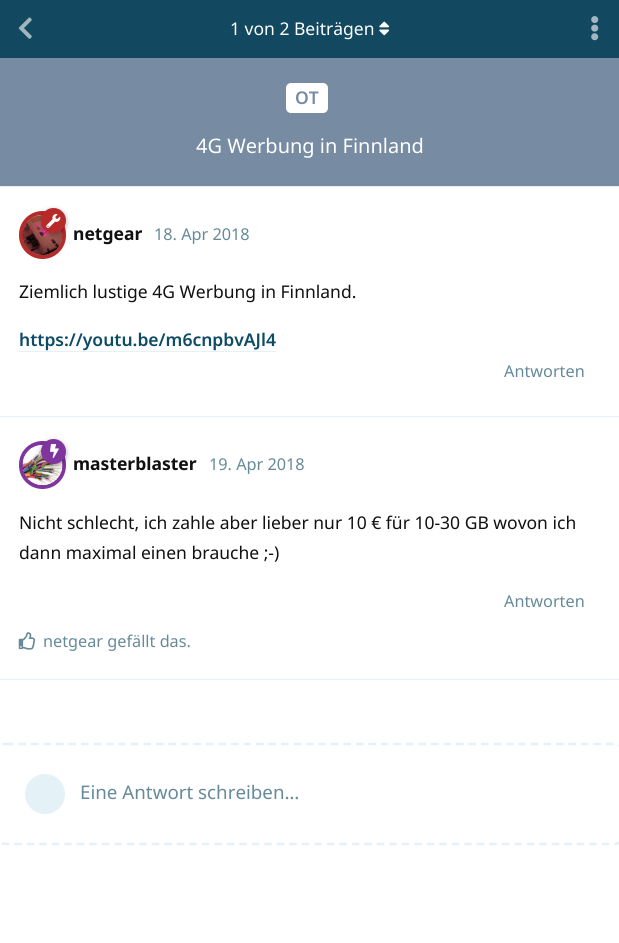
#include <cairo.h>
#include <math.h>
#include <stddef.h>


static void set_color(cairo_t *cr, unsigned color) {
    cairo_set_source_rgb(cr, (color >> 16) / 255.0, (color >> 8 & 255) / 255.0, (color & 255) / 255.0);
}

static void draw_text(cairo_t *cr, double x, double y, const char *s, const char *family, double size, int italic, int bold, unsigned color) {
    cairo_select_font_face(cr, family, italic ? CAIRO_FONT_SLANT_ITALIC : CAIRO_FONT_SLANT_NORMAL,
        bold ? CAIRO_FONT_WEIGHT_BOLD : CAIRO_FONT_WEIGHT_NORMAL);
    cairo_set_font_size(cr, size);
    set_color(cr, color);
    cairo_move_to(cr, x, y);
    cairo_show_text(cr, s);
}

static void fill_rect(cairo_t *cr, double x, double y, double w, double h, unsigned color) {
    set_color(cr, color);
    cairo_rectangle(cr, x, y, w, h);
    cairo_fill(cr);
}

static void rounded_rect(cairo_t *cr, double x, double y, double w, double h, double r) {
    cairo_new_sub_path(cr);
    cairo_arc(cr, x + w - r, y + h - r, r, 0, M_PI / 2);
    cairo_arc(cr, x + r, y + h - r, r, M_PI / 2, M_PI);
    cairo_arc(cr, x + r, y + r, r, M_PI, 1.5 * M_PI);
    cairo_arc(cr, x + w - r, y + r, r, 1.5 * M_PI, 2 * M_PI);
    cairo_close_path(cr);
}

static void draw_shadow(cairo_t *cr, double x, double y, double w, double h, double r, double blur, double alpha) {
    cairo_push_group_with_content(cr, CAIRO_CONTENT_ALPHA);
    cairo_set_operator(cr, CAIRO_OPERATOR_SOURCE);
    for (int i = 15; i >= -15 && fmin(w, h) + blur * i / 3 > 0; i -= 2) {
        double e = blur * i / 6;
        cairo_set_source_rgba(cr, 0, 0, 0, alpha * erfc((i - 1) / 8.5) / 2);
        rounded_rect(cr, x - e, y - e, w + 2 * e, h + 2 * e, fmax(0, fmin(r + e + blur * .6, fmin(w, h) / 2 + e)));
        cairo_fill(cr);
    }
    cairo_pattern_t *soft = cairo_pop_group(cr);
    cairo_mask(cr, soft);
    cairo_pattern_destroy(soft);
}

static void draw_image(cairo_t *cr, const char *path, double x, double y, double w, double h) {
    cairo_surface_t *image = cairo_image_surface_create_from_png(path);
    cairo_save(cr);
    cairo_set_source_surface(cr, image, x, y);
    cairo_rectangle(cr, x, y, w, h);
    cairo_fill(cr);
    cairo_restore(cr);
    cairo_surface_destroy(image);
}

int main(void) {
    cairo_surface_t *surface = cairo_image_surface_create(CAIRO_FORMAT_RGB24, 619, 943);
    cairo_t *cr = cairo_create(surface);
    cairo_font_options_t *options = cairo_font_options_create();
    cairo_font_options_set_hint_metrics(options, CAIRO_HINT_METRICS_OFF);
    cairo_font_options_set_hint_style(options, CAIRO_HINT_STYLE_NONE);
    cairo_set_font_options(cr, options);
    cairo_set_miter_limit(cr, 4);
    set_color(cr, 0xFFFFFF);
    cairo_paint(cr);
    fill_rect(cr, 0, 0, 619, 58, 0x134960);
    draw_image(cr, "assets/img1.png", 18, 17, 14, 22);
    fill_rect(cr, 0, 186, 619, 1, 0xE4F1F6);
    draw_text(cr, 230, 35, "1 von 2 Beiträgen", "Noto Sans", 17.5, 0, 0, 0xFFFFFF);
    draw_image(cr, "assets/img2.png", 379, 21, 11, 15);
    draw_image(cr, "assets/img3.png", 591, 16, 8, 25);
    fill_rect(cr, 0, 416, 619, 1, 0xE4F1F6);
    rounded_rect(cr, 21, 213, 43, 44, 21.5);
    cairo_fill_preserve(cr);
    set_color(cr, 0xB72A2A);
    cairo_set_line_width(cr, 4);
    cairo_stroke(cr);
    draw_image(cr, "assets/img5.png", 22, 215, 41, 40);
    set_color(cr, 0x000000);
    draw_shadow(cr, 41, 210, 25, 25, 12.5, 2.5, 0.35);
    set_color(cr, 0xB72A2A);
    cairo_arc(cr, 53.5, 220.5, 12.5, 0, 2 * M_PI);
    cairo_fill(cr);
    draw_image(cr, "assets/img4.png", 46, 214, 15, 14);
    draw_text(cr, 73, 240, "netgear", "Noto Sans", 17.5, 0, 1, 0x111111);
    draw_text(cr, 154, 240, "18. Apr 2018", "Noto Sans", 16.25, 0, 0, 0x668A99);
    draw_text(cr, 19, 298, "Ziemlich lustige 4G Werbung in Finnland.", "Noto Sans", 17.5, 0, 0, 0x111111);
    draw_text(cr, 19, 346, "https://youtu.be/m6cnpbvAJl4", "Noto Sans SemiBold", 17.5, 0, 0, 0x0D4B66);
    fill_rect(cr, 19, 351, 257, 1, 0xE4F1F6);
    draw_text(cr, 504, 377, "Antworten", "Noto Sans", 16.25, 0, 0, 0x668A99);
    fill_rect(cr, 0, 679, 619, 1, 0xE4F1F6);
    rounded_rect(cr, 21, 443, 43, 44, 21.5);
    cairo_fill_preserve(cr);
    set_color(cr, 0x80349E);
    cairo_stroke(cr);
    draw_image(cr, "assets/img7.png", 22, 445, 41, 40);
    set_color(cr, 0x000000);
    draw_shadow(cr, 41, 441, 25, 25, 12.5, 2.5, 0.35);
    set_color(cr, 0x80349E);
    cairo_arc(cr, 53.5, 451.5, 12.5, 0, 2 * M_PI);
    cairo_fill(cr);
    draw_image(cr, "assets/img6.png", 50, 444, 9, 14);
    draw_text(cr, 73, 470, "masterblaster", "Noto Sans", 17.5, 0, 1, 0x111111);
    draw_text(cr, 209, 470, "19. Apr 2018", "Noto Sans", 16.25, 0, 0, 0x668A99);
    draw_text(cr, 19, 529, "Nicht schlecht, ich zahle aber lieber nur 10 € für 10-30 GB wovon ich", "Noto Sans", 17.5, 0, 0, 0x111111);
    draw_text(cr, 19, 559, "dann maximal einen brauche ;-)", "Noto Sans", 17.5, 0, 0, 0x111111);
    draw_text(cr, 504, 607, "Antworten", "Noto Sans", 16.25, 0, 0, 0x668A99);
    draw_image(cr, "assets/img8.png", 18, 632, 18, 18);
    draw_text(cr, 43, 647, "netgear gefällt das.", "Noto Sans", 16.25, 0, 0, 0x668A99);
    cairo_new_path(cr);
    cairo_move_to(cr, 6, 744);
    cairo_line_to(cr, 614, 744);
    cairo_curve_to(cr, 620, 744, 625, 749, 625, 755);
    cairo_line_to(cr, 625, 832.5);
    cairo_curve_to(cr, 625, 838.5, 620, 844, 614, 844);
    cairo_line_to(cr, 6, 844);
    cairo_curve_to(cr, 0, 844, -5, 838.5, -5, 832.5);
    cairo_line_to(cr, -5, 755);
    cairo_curve_to(cr, -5, 749, 0, 744, 6, 744);
    cairo_close_path(cr);
    set_color(cr, 0xE4F1F6);
    cairo_set_line_width(cr, 2.5);
    cairo_set_dash(cr, (double[]){7.5, 5}, 2, 0);
    cairo_stroke(cr);
    cairo_arc(cr, 45, 794, 22, 0, 2 * M_PI);
    cairo_fill_preserve(cr);
    set_color(cr, 0xFFFFFF);
    cairo_set_line_width(cr, 4);
    cairo_set_dash(cr, NULL, 0, 0);
    cairo_stroke(cr);
    draw_text(cr, 80, 799, "Eine Antwort schreiben…", "Noto Sans", 18.75, 0, 0, 0x668A99);
    fill_rect(cr, 0, 58, 619, 128, 0x778CA3);
    set_color(cr, 0xFFFFFF);
    rounded_rect(cr, 286, 83, 42, 30, 5);
    cairo_fill(cr);
    draw_text(cr, 295, 104, "OT", "Noto Sans SemiBold", 17.5, 0, 0, 0x778CA3);
    draw_text(cr, 196, 153, "4G Werbung in Finnland", "Noto Sans", 20, 0, 0, 0xFFFFFF);
    cairo_surface_write_to_png(surface, "output.png");
    cairo_font_options_destroy(options);
    cairo_destroy(cr);
    cairo_surface_destroy(surface);
    return 0;
}
